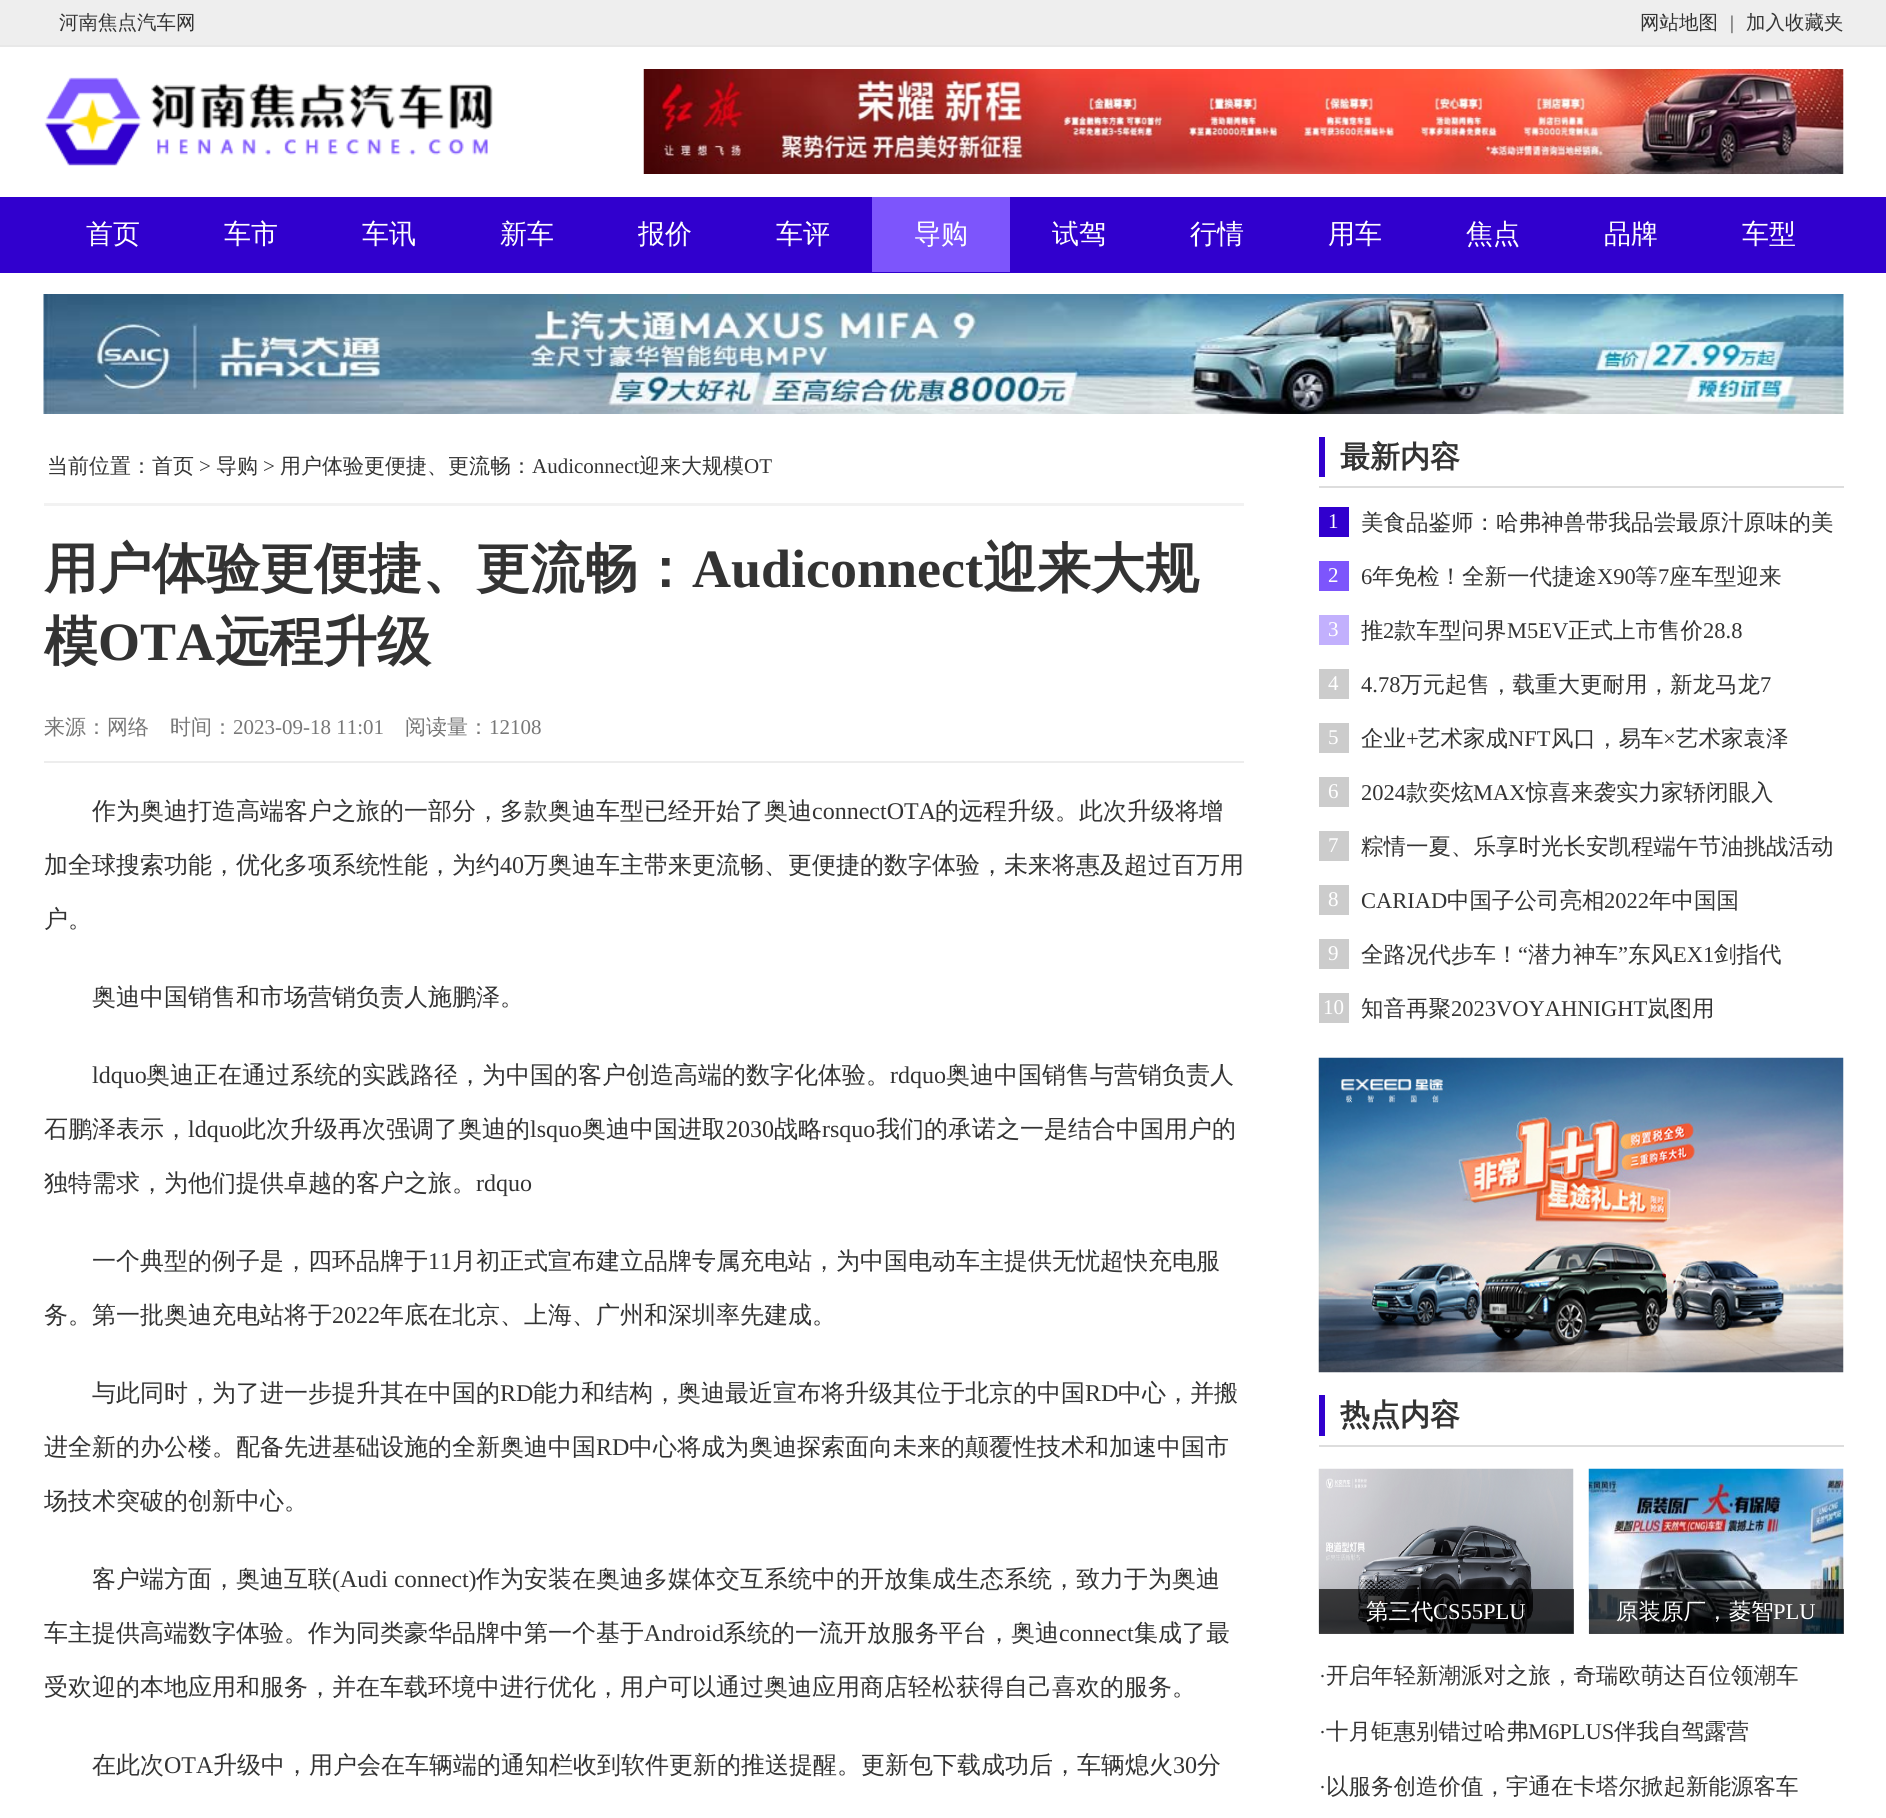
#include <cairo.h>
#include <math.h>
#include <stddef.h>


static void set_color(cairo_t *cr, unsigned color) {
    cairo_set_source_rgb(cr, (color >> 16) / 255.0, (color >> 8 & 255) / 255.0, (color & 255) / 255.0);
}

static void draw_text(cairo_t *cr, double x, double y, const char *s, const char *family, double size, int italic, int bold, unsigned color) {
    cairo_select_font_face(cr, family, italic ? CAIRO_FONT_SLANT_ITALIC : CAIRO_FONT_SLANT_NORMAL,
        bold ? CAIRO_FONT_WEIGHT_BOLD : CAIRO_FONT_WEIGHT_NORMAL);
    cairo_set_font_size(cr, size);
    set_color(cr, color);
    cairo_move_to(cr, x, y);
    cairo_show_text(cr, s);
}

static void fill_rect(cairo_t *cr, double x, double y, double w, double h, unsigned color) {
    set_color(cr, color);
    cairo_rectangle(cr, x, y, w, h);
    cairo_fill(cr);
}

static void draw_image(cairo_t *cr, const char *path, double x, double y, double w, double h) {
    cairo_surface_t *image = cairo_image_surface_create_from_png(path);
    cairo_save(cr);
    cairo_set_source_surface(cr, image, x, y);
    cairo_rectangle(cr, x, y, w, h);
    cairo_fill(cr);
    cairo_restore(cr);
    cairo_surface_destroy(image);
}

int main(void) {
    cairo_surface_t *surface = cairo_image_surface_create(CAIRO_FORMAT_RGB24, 1886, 1818);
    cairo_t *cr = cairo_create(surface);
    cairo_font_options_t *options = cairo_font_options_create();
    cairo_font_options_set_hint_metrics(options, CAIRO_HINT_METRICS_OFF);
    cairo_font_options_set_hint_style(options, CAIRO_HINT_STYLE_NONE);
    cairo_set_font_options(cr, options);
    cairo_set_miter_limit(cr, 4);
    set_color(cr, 0xFFFFFF);
    cairo_paint(cr);
    fill_rect(cr, 0, 0, 1886, 45, 0xEEEEEE);
    fill_rect(cr, 0, 45, 1886, 2, 0xE8E8E8);
    draw_text(cr, 59, 29, "河南焦点汽车网", "WenQuanYi Zen Hei Medium", 19.5, 0, 0, 0x333333);
    draw_text(cr, 1640, 29, "网站地图", "WenQuanYi Zen Hei Medium", 19.5, 0, 0, 0x333333);
    draw_text(cr, 1730, 29, "|", "Liberation Serif", 19.5, 0, 0, 0x333333);
    draw_text(cr, 1746, 29, "加入收藏夹", "WenQuanYi Zen Hei Medium", 19.5, 0, 0, 0x333333);
    draw_image(cr, "assets/img1.png", 44, 77, 449, 89);
    draw_image(cr, "assets/img2.png", 643, 69, 1201, 105);
    fill_rect(cr, 0, 197, 1886, 76, 0x3100CE);
    draw_text(cr, 86, 243, "首页", "WenQuanYi Zen Hei Medium", 27, 0, 0, 0xFFFFFF);
    draw_text(cr, 224, 243, "车市", "WenQuanYi Zen Hei Medium", 27, 0, 0, 0xFFFFFF);
    draw_text(cr, 362, 243, "车讯", "WenQuanYi Zen Hei Medium", 27, 0, 0, 0xFFFFFF);
    draw_text(cr, 500, 243, "新车", "WenQuanYi Zen Hei Medium", 27, 0, 0, 0xFFFFFF);
    draw_text(cr, 638, 243, "报价", "WenQuanYi Zen Hei Medium", 27, 0, 0, 0xFFFFFF);
    draw_text(cr, 776, 243, "车评", "WenQuanYi Zen Hei Medium", 27, 0, 0, 0xFFFFFF);
    fill_rect(cr, 872, 197, 138, 75, 0x7D55FC);
    draw_text(cr, 914, 243, "导购", "WenQuanYi Zen Hei Medium", 27, 0, 0, 0xFFFFFF);
    draw_text(cr, 1052, 243, "试驾", "WenQuanYi Zen Hei Medium", 27, 0, 0, 0xFFFFFF);
    draw_text(cr, 1190, 243, "行情", "WenQuanYi Zen Hei Medium", 27, 0, 0, 0xFFFFFF);
    draw_text(cr, 1328, 243, "用车", "WenQuanYi Zen Hei Medium", 27, 0, 0, 0xFFFFFF);
    draw_text(cr, 1466, 243, "焦点", "WenQuanYi Zen Hei Medium", 27, 0, 0, 0xFFFFFF);
    draw_text(cr, 1604, 243, "品牌", "WenQuanYi Zen Hei Medium", 27, 0, 0, 0xFFFFFF);
    draw_text(cr, 1742, 243, "车型", "WenQuanYi Zen Hei Medium", 27, 0, 0, 0xFFFFFF);
    draw_image(cr, "assets/img3.png", 43, 294, 1801, 120);
    fill_rect(cr, 44, 503, 1200, 3, 0xF2F2F2);
    draw_text(cr, 47, 473, "当前位置：首页", "WenQuanYi Zen Hei Medium", 21, 0, 0, 0x333333);
    draw_text(cr, 199, 473, ">", "Liberation Serif", 21, 0, 0, 0x333333);
    draw_text(cr, 216, 473, "导购", "WenQuanYi Zen Hei Medium", 21, 0, 0, 0x333333);
    draw_text(cr, 263, 473, ">", "Liberation Serif", 21, 0, 0, 0x333333);
    draw_text(cr, 280, 473, "用户体验更便捷、更流畅：", "WenQuanYi Zen Hei Medium", 21, 0, 0, 0x333333);
    draw_text(cr, 532, 473, "Audiconnect", "Liberation Serif", 21, 0, 0, 0x333333);
    draw_text(cr, 639, 473, "迎来大规模", "WenQuanYi Zen Hei Medium", 21, 0, 0, 0x333333);
    draw_text(cr, 744, 473, "OT", "Liberation Serif", 21, 0, 0, 0x333333);
    draw_text(cr, 44, 587, "用户体验更便捷、更流畅：", "WenQuanYi Zen Hei", 54, 0, 1, 0x333333);
    draw_text(cr, 692, 587, "Audiconnect", "Liberation Serif", 54, 0, 1, 0x333333);
    draw_text(cr, 983, 587, "迎来大规", "WenQuanYi Zen Hei", 54, 0, 1, 0x333333);
    draw_text(cr, 44, 660, "模", "WenQuanYi Zen Hei", 54, 0, 1, 0x333333);
    draw_text(cr, 98, 660, "OTA", "Liberation Serif", 54, 0, 1, 0x333333);
    draw_text(cr, 215, 660, "远程升级", "WenQuanYi Zen Hei", 54, 0, 1, 0x333333);
    fill_rect(cr, 44, 761, 1200, 2, 0xEDEDED);
    draw_text(cr, 44, 734, "来源：网络", "WenQuanYi Zen Hei Medium", 21, 0, 0, 0x777777);
    draw_text(cr, 170, 734, "时间：", "WenQuanYi Zen Hei Medium", 21, 0, 0, 0x777777);
    draw_text(cr, 233, 734, "2023-09-18 11:01", "Liberation Serif", 21, 0, 0, 0x777777);
    draw_text(cr, 405, 734, "阅读量：", "WenQuanYi Zen Hei Medium", 21, 0, 0, 0x777777);
    draw_text(cr, 489, 734, "12108", "Liberation Serif", 21, 0, 0, 0x777777);
    draw_text(cr, 92, 819, "作为奥迪打造高端客户之旅的一部分，多款奥迪车型已经开始了奥迪", "WenQuanYi Zen Hei Medium", 24, 0, 0, 0x333333);
    draw_text(cr, 812, 819, "connectOTA", "Liberation Serif", 24, 0, 0, 0x333333);
    draw_text(cr, 935, 819, "的远程升级。此次升级将增", "WenQuanYi Zen Hei Medium", 24, 0, 0, 0x333333);
    draw_text(cr, 44, 873, "加全球搜索功能，优化多项系统性能，为约", "WenQuanYi Zen Hei Medium", 24, 0, 0, 0x333333);
    draw_text(cr, 500, 873, "40", "Liberation Serif", 24, 0, 0, 0x333333);
    draw_text(cr, 524, 873, "万奥迪车主带来更流畅、更便捷的数字体验，未来将惠及超过百万用", "WenQuanYi Zen Hei Medium", 24, 0, 0, 0x333333);
    draw_text(cr, 44, 927, "户。", "WenQuanYi Zen Hei Medium", 24, 0, 0, 0x333333);
    draw_text(cr, 92, 1005, "奥迪中国销售和市场营销负责人施鹏泽。", "WenQuanYi Zen Hei Medium", 24, 0, 0, 0x333333);
    draw_text(cr, 92, 1083, "ldquo", "Liberation Serif", 24, 0, 0, 0x333333);
    draw_text(cr, 146, 1083, "奥迪正在通过系统的实践路径，为中国的客户创造高端的数字化体验。", "WenQuanYi Zen Hei Medium", 24, 0, 0, 0x333333);
    draw_text(cr, 890, 1083, "rdquo", "Liberation Serif", 24, 0, 0, 0x333333);
    draw_text(cr, 946, 1083, "奥迪中国销售与营销负责人", "WenQuanYi Zen Hei Medium", 24, 0, 0, 0x333333);
    draw_text(cr, 44, 1137, "石鹏泽表示，", "WenQuanYi Zen Hei Medium", 24, 0, 0, 0x333333);
    draw_text(cr, 188, 1137, "ldquo", "Liberation Serif", 24, 0, 0, 0x333333);
    draw_text(cr, 242, 1137, "此次升级再次强调了奥迪的", "WenQuanYi Zen Hei Medium", 24, 0, 0, 0x333333);
    draw_text(cr, 530, 1137, "lsquo", "Liberation Serif", 24, 0, 0, 0x333333);
    draw_text(cr, 582, 1137, "奥迪中国进取", "WenQuanYi Zen Hei Medium", 24, 0, 0, 0x333333);
    draw_text(cr, 726, 1137, "2030", "Liberation Serif", 24, 0, 0, 0x333333);
    draw_text(cr, 774, 1137, "战略", "WenQuanYi Zen Hei Medium", 24, 0, 0, 0x333333);
    draw_text(cr, 822, 1137, "rsquo", "Liberation Serif", 24, 0, 0, 0x333333);
    draw_text(cr, 876, 1137, "我们的承诺之一是结合中国用户的", "WenQuanYi Zen Hei Medium", 24, 0, 0, 0x333333);
    draw_text(cr, 44, 1191, "独特需求，为他们提供卓越的客户之旅。", "WenQuanYi Zen Hei Medium", 24, 0, 0, 0x333333);
    draw_text(cr, 476, 1191, "rdquo", "Liberation Serif", 24, 0, 0, 0x333333);
    draw_text(cr, 92, 1269, "一个典型的例子是，四环品牌于", "WenQuanYi Zen Hei Medium", 24, 0, 0, 0x333333);
    draw_text(cr, 428, 1269, "11", "Liberation Serif", 24, 0, 0, 0x333333);
    draw_text(cr, 452, 1269, "月初正式宣布建立品牌专属充电站，为中国电动车主提供无忧超快充电服", "WenQuanYi Zen Hei Medium", 24, 0, 0, 0x333333);
    draw_text(cr, 44, 1323, "务。第一批奥迪充电站将于", "WenQuanYi Zen Hei Medium", 24, 0, 0, 0x333333);
    draw_text(cr, 332, 1323, "2022", "Liberation Serif", 24, 0, 0, 0x333333);
    draw_text(cr, 380, 1323, "年底在北京、上海、广州和深圳率先建成。", "WenQuanYi Zen Hei Medium", 24, 0, 0, 0x333333);
    draw_text(cr, 92, 1401, "与此同时，为了进一步提升其在中国的", "WenQuanYi Zen Hei Medium", 24, 0, 0, 0x333333);
    draw_text(cr, 500, 1401, "RD", "Liberation Serif", 24, 0, 0, 0x333333);
    draw_text(cr, 533, 1401, "能力和结构，奥迪最近宣布将升级其位于北京的中国", "WenQuanYi Zen Hei Medium", 24, 0, 0, 0x333333);
    draw_text(cr, 1085, 1401, "RD", "Liberation Serif", 24, 0, 0, 0x333333);
    draw_text(cr, 1118, 1401, "中心，并搬", "WenQuanYi Zen Hei Medium", 24, 0, 0, 0x333333);
    draw_text(cr, 44, 1455, "进全新的办公楼。配备先进基础设施的全新奥迪中国", "WenQuanYi Zen Hei Medium", 24, 0, 0, 0x333333);
    draw_text(cr, 596, 1455, "RD", "Liberation Serif", 24, 0, 0, 0x333333);
    draw_text(cr, 629, 1455, "中心将成为奥迪探索面向未来的颠覆性技术和加速中国市", "WenQuanYi Zen Hei Medium", 24, 0, 0, 0x333333);
    cairo_save(cr);
    cairo_rectangle(cr, 44, 429, 1200, 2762);
    cairo_clip(cr);
    draw_text(cr, 44, 1509, "场技术突破的创新中心。", "WenQuanYi Zen Hei Medium", 24, 0, 0, 0x333333);
    cairo_restore(cr);
    draw_text(cr, 92, 1587, "客户端方面，奥迪互联", "WenQuanYi Zen Hei Medium", 24, 0, 0, 0x333333);
    draw_text(cr, 332, 1587, "(Audi connect)", "Liberation Serif", 24, 0, 0, 0x333333);
    draw_text(cr, 476, 1587, "作为安装在奥迪多媒体交互系统中的开放集成生态系统，致力于为奥迪", "WenQuanYi Zen Hei Medium", 24, 0, 0, 0x333333);
    draw_text(cr, 44, 1641, "车主提供高端数字体验。作为同类豪华品牌中第一个基于", "WenQuanYi Zen Hei Medium", 24, 0, 0, 0x333333);
    draw_text(cr, 644, 1641, "Android", "Liberation Serif", 24, 0, 0, 0x333333);
    draw_text(cr, 723, 1641, "系统的一流开放服务平台，奥迪", "WenQuanYi Zen Hei Medium", 24, 0, 0, 0x333333);
    draw_text(cr, 1059, 1641, "connect", "Liberation Serif", 24, 0, 0, 0x333333);
    draw_text(cr, 1134, 1641, "集成了最", "WenQuanYi Zen Hei Medium", 24, 0, 0, 0x333333);
    draw_text(cr, 44, 1695, "受欢迎的本地应用和服务，并在车载环境中进行优化，用户可以通过奥迪应用商店轻松获得自己喜欢的服务。", "WenQuanYi Zen Hei Medium", 24, 0, 0, 0x333333);
    draw_text(cr, 92, 1773, "在此次", "WenQuanYi Zen Hei Medium", 24, 0, 0, 0x333333);
    draw_text(cr, 164, 1773, "OTA", "Liberation Serif", 24, 0, 0, 0x333333);
    draw_text(cr, 213, 1773, "升级中，用户会在车辆端的通知栏收到软件更新的推送提醒。更新包下载成功后，车辆熄火", "WenQuanYi Zen Hei Medium", 24, 0, 0, 0x333333);
    draw_text(cr, 1173, 1773, "30", "Liberation Serif", 24, 0, 0, 0x333333);
    draw_text(cr, 1197, 1773, "分", "WenQuanYi Zen Hei Medium", 24, 0, 0, 0x333333);
    fill_rect(cr, 1319, 486, 525, 2, 0xDDDDDD);
    fill_rect(cr, 1319, 437, 6, 40, 0x3100CE);
    draw_text(cr, 1340, 467, "最新内容", "WenQuanYi Zen Hei", 30, 0, 1, 0x333333);
    fill_rect(cr, 1319, 507, 30, 30, 0x3100CE);
    draw_text(cr, 1328, 528, "1", "Liberation Serif", 21, 0, 0, 0xFFFFFF);
    draw_text(cr, 1361, 530, "美食品鉴师：哈弗神兽带我品尝最原汁原味的美", "WenQuanYi Zen Hei Medium", 22.5, 0, 0, 0x333333);
    fill_rect(cr, 1319, 561, 30, 30, 0x7D55FC);
    draw_text(cr, 1328, 582, "2", "Liberation Serif", 21, 0, 0, 0xFFFFFF);
    draw_text(cr, 1361, 584, "6", "Liberation Serif", 22.5, 0, 0, 0x333333);
    draw_text(cr, 1372, 584, "年免检！全新一代捷途", "WenQuanYi Zen Hei Medium", 22.5, 0, 0, 0x333333);
    draw_text(cr, 1597, 584, "X90", "Liberation Serif", 22.5, 0, 0, 0x333333);
    draw_text(cr, 1635, 584, "等", "WenQuanYi Zen Hei Medium", 22.5, 0, 0, 0x333333);
    draw_text(cr, 1658, 584, "7", "Liberation Serif", 22.5, 0, 0, 0x333333);
    draw_text(cr, 1669, 584, "座车型迎来", "WenQuanYi Zen Hei Medium", 22.5, 0, 0, 0x333333);
    fill_rect(cr, 1319, 615, 30, 30, 0xC2B0FD);
    draw_text(cr, 1328, 636, "3", "Liberation Serif", 21, 0, 0, 0xFFFFFF);
    draw_text(cr, 1361, 638, "推", "WenQuanYi Zen Hei Medium", 22.5, 0, 0, 0x333333);
    draw_text(cr, 1383, 638, "2", "Liberation Serif", 22.5, 0, 0, 0x333333);
    draw_text(cr, 1394, 638, "款车型问界", "WenQuanYi Zen Hei Medium", 22.5, 0, 0, 0x333333);
    draw_text(cr, 1507, 638, "M5EV", "Liberation Serif", 22.5, 0, 0, 0x333333);
    draw_text(cr, 1568, 638, "正式上市售价", "WenQuanYi Zen Hei Medium", 22.5, 0, 0, 0x333333);
    draw_text(cr, 1703, 638, "28.8", "Liberation Serif", 22.5, 0, 0, 0x333333);
    fill_rect(cr, 1319, 669, 30, 30, 0xCCCCCC);
    draw_text(cr, 1328, 690, "4", "Liberation Serif", 21, 0, 0, 0xFFFFFF);
    draw_text(cr, 1361, 692, "4.78", "Liberation Serif", 22.5, 0, 0, 0x333333);
    draw_text(cr, 1400, 692, "万元起售，载重大更耐用，新龙马龙", "WenQuanYi Zen Hei Medium", 22.5, 0, 0, 0x333333);
    draw_text(cr, 1760, 692, "7", "Liberation Serif", 22.5, 0, 0, 0x333333);
    fill_rect(cr, 1319, 723, 30, 30, 0xCCCCCC);
    draw_text(cr, 1328, 744, "5", "Liberation Serif", 21, 0, 0, 0xFFFFFF);
    draw_text(cr, 1361, 746, "企业", "WenQuanYi Zen Hei Medium", 22.5, 0, 0, 0x333333);
    draw_text(cr, 1406, 746, "+", "Liberation Serif", 22.5, 0, 0, 0x333333);
    draw_text(cr, 1418, 746, "艺术家成", "WenQuanYi Zen Hei Medium", 22.5, 0, 0, 0x333333);
    draw_text(cr, 1508, 746, "NFT", "Liberation Serif", 22.5, 0, 0, 0x333333);
    draw_text(cr, 1551, 746, "风口，易车", "WenQuanYi Zen Hei Medium", 22.5, 0, 0, 0x333333);
    draw_text(cr, 1663, 746, "×", "Liberation Serif", 22.5, 0, 0, 0x333333);
    draw_text(cr, 1676, 746, "艺术家袁泽", "WenQuanYi Zen Hei Medium", 22.5, 0, 0, 0x333333);
    fill_rect(cr, 1319, 777, 30, 30, 0xCCCCCC);
    draw_text(cr, 1328, 798, "6", "Liberation Serif", 21, 0, 0, 0xFFFFFF);
    draw_text(cr, 1361, 800, "2024", "Liberation Serif", 22.5, 0, 0, 0x333333);
    draw_text(cr, 1406, 800, "款奕炫", "WenQuanYi Zen Hei Medium", 22.5, 0, 0, 0x333333);
    draw_text(cr, 1473, 800, "MAX", "Liberation Serif", 22.5, 0, 0, 0x333333);
    draw_text(cr, 1526, 800, "惊喜来袭实力家轿闭眼入", "WenQuanYi Zen Hei Medium", 22.5, 0, 0, 0x333333);
    fill_rect(cr, 1319, 831, 30, 30, 0xCCCCCC);
    draw_text(cr, 1328, 852, "7", "Liberation Serif", 21, 0, 0, 0xFFFFFF);
    draw_text(cr, 1361, 854, "粽情一夏、乐享时光长安凯程端午节油挑战活动", "WenQuanYi Zen Hei Medium", 22.5, 0, 0, 0x333333);
    fill_rect(cr, 1319, 885, 30, 30, 0xCCCCCC);
    draw_text(cr, 1328, 906, "8", "Liberation Serif", 21, 0, 0, 0xFFFFFF);
    draw_text(cr, 1361, 908, "CARIAD", "Liberation Serif", 22.5, 0, 0, 0x333333);
    draw_text(cr, 1447, 908, "中国子公司亮相", "WenQuanYi Zen Hei Medium", 22.5, 0, 0, 0x333333);
    draw_text(cr, 1604, 908, "2022", "Liberation Serif", 22.5, 0, 0, 0x333333);
    draw_text(cr, 1649, 908, "年中国国", "WenQuanYi Zen Hei Medium", 22.5, 0, 0, 0x333333);
    fill_rect(cr, 1319, 939, 30, 30, 0xCCCCCC);
    draw_text(cr, 1328, 960, "9", "Liberation Serif", 21, 0, 0, 0xFFFFFF);
    draw_text(cr, 1361, 962, "全路况代步车！", "WenQuanYi Zen Hei Medium", 22.5, 0, 0, 0x333333);
    draw_text(cr, 1518, 962, "“", "Liberation Serif", 22.5, 0, 0, 0x333333);
    draw_text(cr, 1528, 962, "潜力神车", "WenQuanYi Zen Hei Medium", 22.5, 0, 0, 0x333333);
    draw_text(cr, 1618, 962, "”", "Liberation Serif", 22.5, 0, 0, 0x333333);
    draw_text(cr, 1628, 962, "东风", "WenQuanYi Zen Hei Medium", 22.5, 0, 0, 0x333333);
    draw_text(cr, 1673, 962, "EX1", "Liberation Serif", 22.5, 0, 0, 0x333333);
    draw_text(cr, 1714, 962, "剑指代", "WenQuanYi Zen Hei Medium", 22.5, 0, 0, 0x333333);
    fill_rect(cr, 1319, 993, 30, 30, 0xCCCCCC);
    draw_text(cr, 1323, 1014, "10", "Liberation Serif", 21, 0, 0, 0xFFFFFF);
    draw_text(cr, 1361, 1016, "知音再聚", "WenQuanYi Zen Hei Medium", 22.5, 0, 0, 0x333333);
    draw_text(cr, 1451, 1016, "2023VOYAHNIGHT", "Liberation Serif", 22.5, 0, 0, 0x333333);
    draw_text(cr, 1647, 1016, "岚图用", "WenQuanYi Zen Hei Medium", 22.5, 0, 0, 0x333333);
    draw_image(cr, "assets/img4.png", 1318, 1057, 526, 316);
    fill_rect(cr, 1319, 1445, 525, 2, 0xDDDDDD);
    fill_rect(cr, 1319, 1395, 6, 41, 0x3100CE);
    draw_text(cr, 1340, 1425, "热点内容", "WenQuanYi Zen Hei", 30, 0, 1, 0x333333);
    draw_image(cr, "assets/img5.png", 1318, 1468, 256, 166);
    cairo_set_source_rgba(cr, 0, 0, 0, 0.7);
    cairo_rectangle(cr, 1319, 1589, 255, 45);
    cairo_fill(cr);
    draw_text(cr, 1366, 1619, "第三代", "WenQuanYi Zen Hei Medium", 22.5, 0, 0, 0xFFFFFF);
    draw_text(cr, 1433, 1619, "CS55PLU", "Liberation Serif", 22.5, 0, 0, 0xFFFFFF);
    draw_image(cr, "assets/img6.png", 1588, 1468, 256, 166);
    cairo_set_source_rgba(cr, 0, 0, 0, 0.7);
    cairo_rectangle(cr, 1589, 1589, 255, 45);
    cairo_fill(cr);
    draw_text(cr, 1616, 1619, "原装原厂，菱智", "WenQuanYi Zen Hei Medium", 22.5, 0, 0, 0xFFFFFF);
    draw_text(cr, 1773, 1619, "PLU", "Liberation Serif", 22.5, 0, 0, 0xFFFFFF);
    draw_text(cr, 1319, 1683, "·", "Liberation Serif", 21, 0, 0, 0x333333);
    draw_text(cr, 1326, 1683, "开启年轻新潮派对之旅，奇瑞欧萌达百位领潮车", "WenQuanYi Zen Hei Medium", 22.5, 0, 0, 0x333333);
    draw_text(cr, 1319, 1739, "·", "Liberation Serif", 21, 0, 0, 0x333333);
    draw_text(cr, 1326, 1739, "十月钜惠别错过哈弗", "WenQuanYi Zen Hei Medium", 22.5, 0, 0, 0x333333);
    draw_text(cr, 1528, 1739, "M6PLUS", "Liberation Serif", 22.5, 0, 0, 0x333333);
    draw_text(cr, 1614, 1739, "伴我自驾露营", "WenQuanYi Zen Hei Medium", 22.5, 0, 0, 0x333333);
    draw_text(cr, 1319, 1794, "·", "Liberation Serif", 21, 0, 0, 0x333333);
    draw_text(cr, 1326, 1794, "以服务创造价值，宇通在卡塔尔掀起新能源客车", "WenQuanYi Zen Hei Medium", 22.5, 0, 0, 0x333333);
    cairo_surface_write_to_png(surface, "output.png");
    cairo_font_options_destroy(options);
    cairo_destroy(cr);
    cairo_surface_destroy(surface);
    return 0;
}
